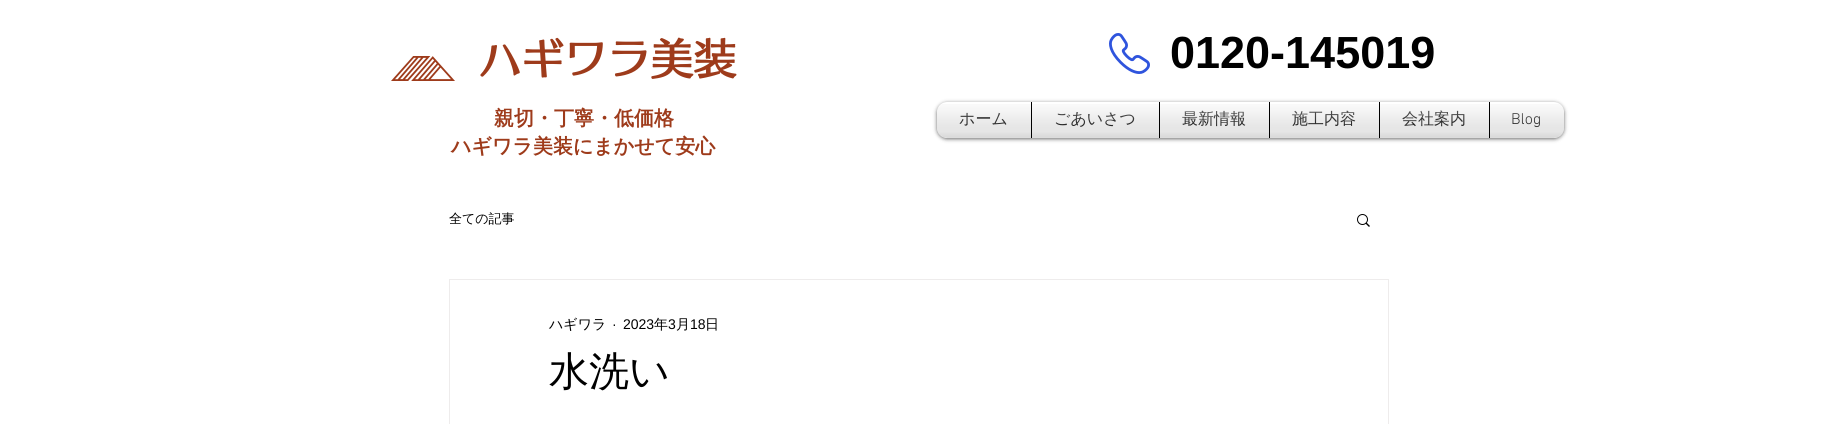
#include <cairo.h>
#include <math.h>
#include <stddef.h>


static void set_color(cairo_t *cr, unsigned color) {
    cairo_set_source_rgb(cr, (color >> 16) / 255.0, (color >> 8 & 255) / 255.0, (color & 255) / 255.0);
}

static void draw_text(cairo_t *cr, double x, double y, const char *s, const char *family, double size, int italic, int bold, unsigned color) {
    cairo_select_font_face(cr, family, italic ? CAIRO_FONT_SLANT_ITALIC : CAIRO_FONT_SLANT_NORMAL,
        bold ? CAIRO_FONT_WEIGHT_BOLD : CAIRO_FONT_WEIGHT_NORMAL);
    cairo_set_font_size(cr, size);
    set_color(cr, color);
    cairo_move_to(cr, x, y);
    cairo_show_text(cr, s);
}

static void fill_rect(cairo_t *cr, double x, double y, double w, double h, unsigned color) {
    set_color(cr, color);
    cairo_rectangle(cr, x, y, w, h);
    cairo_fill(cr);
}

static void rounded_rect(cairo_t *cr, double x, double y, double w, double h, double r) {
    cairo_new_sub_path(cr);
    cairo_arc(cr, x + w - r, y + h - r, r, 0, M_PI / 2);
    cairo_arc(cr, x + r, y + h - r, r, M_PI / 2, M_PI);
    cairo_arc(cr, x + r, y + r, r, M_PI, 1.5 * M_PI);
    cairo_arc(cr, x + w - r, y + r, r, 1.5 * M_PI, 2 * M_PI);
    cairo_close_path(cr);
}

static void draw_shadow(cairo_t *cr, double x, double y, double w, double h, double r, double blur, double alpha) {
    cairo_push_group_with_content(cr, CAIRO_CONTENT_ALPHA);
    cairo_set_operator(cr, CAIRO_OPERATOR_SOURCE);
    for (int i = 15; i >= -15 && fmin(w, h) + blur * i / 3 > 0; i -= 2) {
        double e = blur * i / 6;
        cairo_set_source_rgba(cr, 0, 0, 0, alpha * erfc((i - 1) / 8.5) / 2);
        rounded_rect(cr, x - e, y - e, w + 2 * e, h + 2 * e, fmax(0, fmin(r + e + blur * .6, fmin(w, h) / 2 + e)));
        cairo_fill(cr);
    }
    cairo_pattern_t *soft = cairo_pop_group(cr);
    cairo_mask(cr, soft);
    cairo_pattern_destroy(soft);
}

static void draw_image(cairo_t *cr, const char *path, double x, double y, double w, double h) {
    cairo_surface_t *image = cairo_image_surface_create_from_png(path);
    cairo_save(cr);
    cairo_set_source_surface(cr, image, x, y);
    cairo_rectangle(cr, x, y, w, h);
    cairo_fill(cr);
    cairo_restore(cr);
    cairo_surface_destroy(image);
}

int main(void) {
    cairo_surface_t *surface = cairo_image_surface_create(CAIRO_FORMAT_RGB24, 1838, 424);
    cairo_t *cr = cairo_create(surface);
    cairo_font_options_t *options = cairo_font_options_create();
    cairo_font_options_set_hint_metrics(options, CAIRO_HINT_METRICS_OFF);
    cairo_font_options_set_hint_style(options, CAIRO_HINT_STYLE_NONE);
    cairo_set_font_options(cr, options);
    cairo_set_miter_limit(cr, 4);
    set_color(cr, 0xFFFFFF);
    cairo_paint(cr);
    draw_image(cr, "assets/img1.png", 391, 56, 64, 25);
    draw_text(cr, 478, 75, "ハギワラ美装", "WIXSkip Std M", 43, 0, 1, 0x9E3B1B);
    draw_text(cr, 494, 125, "親切・丁寧・低価格", "WenQuanYi Zen Hei", 20, 0, 1, 0x9E3B1B);
    draw_text(cr, 451, 153, "ハギワラ美装にまかせて安心", "WenQuanYi Zen Hei", 20, 0, 1, 0x9E3B1B);
    draw_image(cr, "assets/img2.png", 1109, 33, 41, 41);
    draw_text(cr, 1170, 68, "0120-145019", "Liberation Sans", 45, 0, 1, 0x000000);
    set_color(cr, 0x000000);
    draw_shadow(cr, 937, 103, 627, 36, 10, 2, 0.6);
    draw_image(cr, "assets/img3.png", 937, 111, 627, 27);
    set_color(cr, 0xFFFFFF);
    cairo_new_path(cr);
    cairo_move_to(cr, 947, 102);
    cairo_line_to(cr, 1031, 102);
    cairo_line_to(cr, 1031, 138);
    cairo_line_to(cr, 947, 138);
    cairo_curve_to(cr, 941.5, 138, 937, 133.5, 937, 128);
    cairo_line_to(cr, 937, 112);
    cairo_curve_to(cr, 937, 106.5, 941.5, 102, 947, 102);
    cairo_close_path(cr);
    cairo_fill(cr);
    draw_text(cr, 959, 124, "ホーム", "WenQuanYi Zen Hei Medium", 16, 0, 0, 0x000000);
    draw_image(cr, "assets/img4.png", 960, 112, 47, 14);
    draw_image(cr, "assets/img5.png", 937, 104, 94, 34);
    fill_rect(cr, 1032, 102, 127, 36, 0xFFFFFF);
    fill_rect(cr, 1031, 102, 1, 36, 0x000000);
    draw_text(cr, 1054, 124, "ごあいさつ", "WenQuanYi Zen Hei Medium", 16, 0, 0, 0x000000);
    draw_image(cr, "assets/img6.png", 1056, 112, 79, 15);
    draw_image(cr, "assets/img7.png", 1032, 104, 127, 34);
    fill_rect(cr, 1160, 102, 109, 36, 0xFFFFFF);
    fill_rect(cr, 1159, 102, 1, 36, 0x000000);
    draw_text(cr, 1182, 124, "最新情報", "WenQuanYi Zen Hei Medium", 16, 0, 0, 0x000000);
    draw_image(cr, "assets/img8.png", 1182, 110, 63, 17);
    draw_image(cr, "assets/img9.png", 1160, 104, 109, 34);
    fill_rect(cr, 1270, 102, 109, 36, 0xFFFFFF);
    fill_rect(cr, 1269, 102, 1, 36, 0x000000);
    draw_text(cr, 1292, 124, "施工内容", "WenQuanYi Zen Hei Medium", 16, 0, 0, 0x000000);
    draw_image(cr, "assets/img10.png", 1292, 110, 63, 16);
    draw_image(cr, "assets/img11.png", 1270, 104, 109, 34);
    fill_rect(cr, 1380, 102, 109, 36, 0xFFFFFF);
    fill_rect(cr, 1379, 102, 1, 36, 0x000000);
    draw_text(cr, 1402, 124, "会社案内", "WenQuanYi Zen Hei Medium", 16, 0, 0, 0x000000);
    draw_image(cr, "assets/img12.png", 1402, 110, 63, 17);
    draw_image(cr, "assets/img13.png", 1380, 104, 109, 34);
    set_color(cr, 0xFFFFFF);
    cairo_new_path(cr);
    cairo_move_to(cr, 1489, 102);
    cairo_line_to(cr, 1554, 102);
    cairo_curve_to(cr, 1559.5, 102, 1564, 106.5, 1564, 112);
    cairo_line_to(cr, 1564, 128);
    cairo_curve_to(cr, 1564, 133.5, 1559.5, 138, 1554, 138);
    cairo_line_to(cr, 1489, 138);
    cairo_close_path(cr);
    cairo_fill(cr);
    fill_rect(cr, 1489, 102, 1, 36, 0x000000);
    draw_text(cr, 1511, 124, "Blog", "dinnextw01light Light", 16, 0, 0, 0x000000);
    draw_image(cr, "assets/img14.png", 1512, 113, 29, 14);
    draw_image(cr, "assets/img15.png", 1490, 104, 74, 34);
    draw_text(cr, 449, 223, "全ての記事", "WenQuanYi Zen Hei Medium", 13, 0, 0, 0x000000);
    draw_image(cr, "assets/img16.png", 1357, 214, 13, 13);
    cairo_rectangle(cr, 449.5, 279.5, 939, 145);
    set_color(cr, 0xEEECEC);
    cairo_set_line_width(cr, 1);
    cairo_stroke(cr);
    draw_text(cr, 549, 329, "ハギワラ", "WenQuanYi Zen Hei Medium", 14, 0, 0, 0x000000);
    draw_text(cr, 612, 329, "·", "Liberation Sans", 14, 0, 0, 0x000000);
    draw_text(cr, 623, 329, "2023", "Liberation Sans", 14, 0, 0, 0x000000);
    draw_text(cr, 654, 329, "年", "WenQuanYi Zen Hei Medium", 14, 0, 0, 0x000000);
    draw_text(cr, 668, 329, "3", "Liberation Sans", 14, 0, 0, 0x000000);
    draw_text(cr, 676, 329, "月", "WenQuanYi Zen Hei Medium", 14, 0, 0, 0x000000);
    draw_text(cr, 690, 329, "18", "Liberation Sans", 14, 0, 0, 0x000000);
    draw_text(cr, 705, 329, "日", "WenQuanYi Zen Hei Medium", 14, 0, 0, 0x000000);
    draw_text(cr, 549, 385, "水洗い", "WenQuanYi Zen Hei Medium", 40, 0, 0, 0x000000);
    cairo_surface_write_to_png(surface, "output.png");
    cairo_font_options_destroy(options);
    cairo_destroy(cr);
    cairo_surface_destroy(surface);
    return 0;
}
